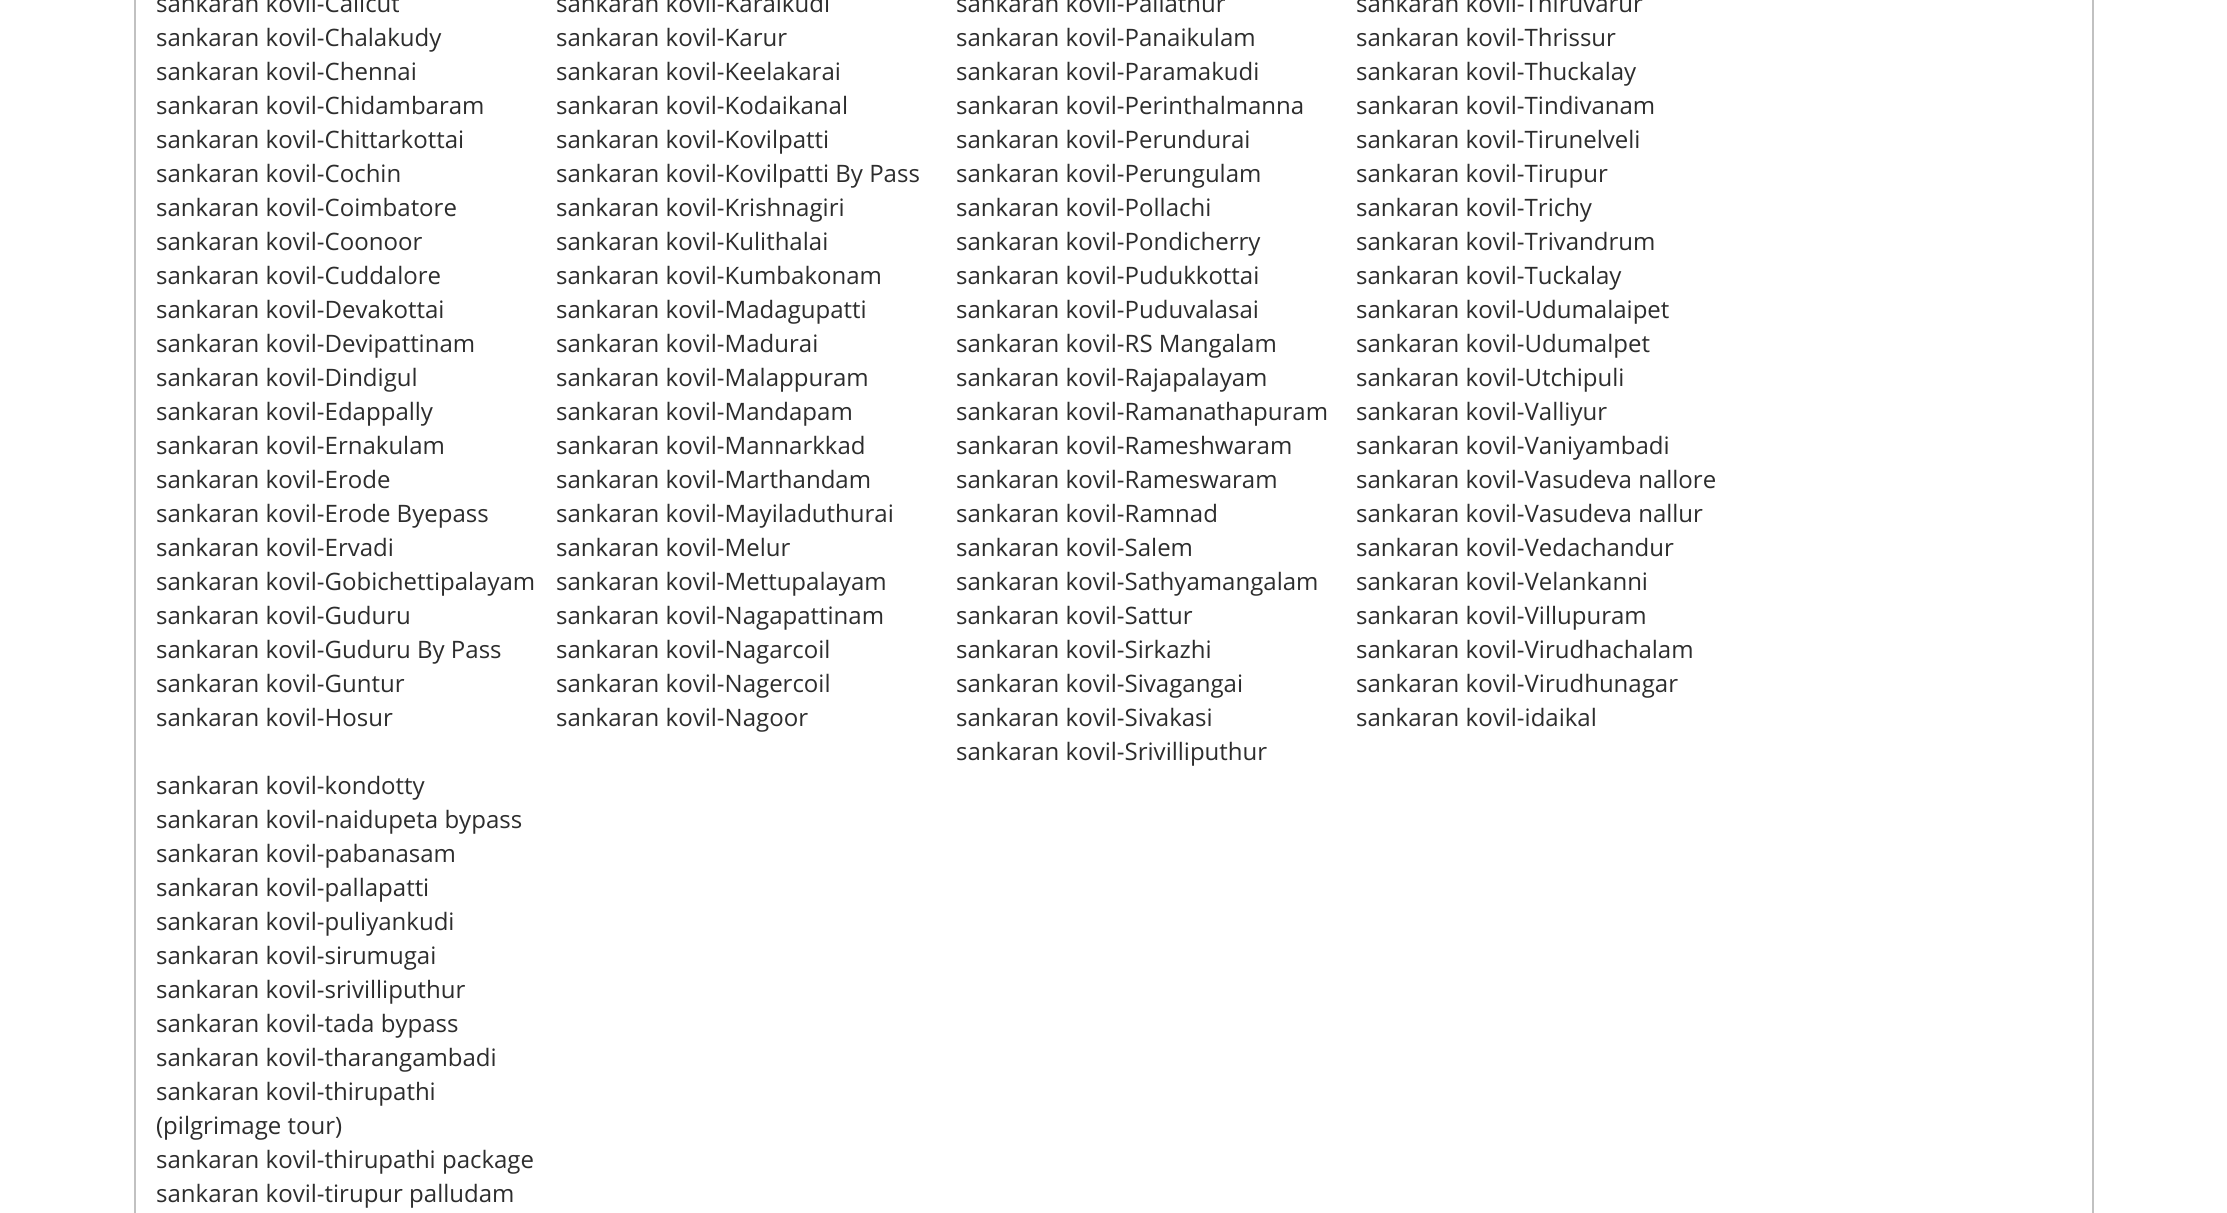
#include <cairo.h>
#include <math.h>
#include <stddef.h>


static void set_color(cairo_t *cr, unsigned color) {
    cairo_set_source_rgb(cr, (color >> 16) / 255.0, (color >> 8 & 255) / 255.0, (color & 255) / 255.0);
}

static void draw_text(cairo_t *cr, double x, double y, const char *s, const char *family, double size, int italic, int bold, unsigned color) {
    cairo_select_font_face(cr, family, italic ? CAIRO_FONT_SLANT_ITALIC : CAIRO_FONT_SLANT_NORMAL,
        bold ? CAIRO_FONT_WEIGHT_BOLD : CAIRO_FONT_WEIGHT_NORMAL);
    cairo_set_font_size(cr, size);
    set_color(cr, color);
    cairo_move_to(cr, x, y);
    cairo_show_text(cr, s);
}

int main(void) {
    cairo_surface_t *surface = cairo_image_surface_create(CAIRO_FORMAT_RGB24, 2227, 1213);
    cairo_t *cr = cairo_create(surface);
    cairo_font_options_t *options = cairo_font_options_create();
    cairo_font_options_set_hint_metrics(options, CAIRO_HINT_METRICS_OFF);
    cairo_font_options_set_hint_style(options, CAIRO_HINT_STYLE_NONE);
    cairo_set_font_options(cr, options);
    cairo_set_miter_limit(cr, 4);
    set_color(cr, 0xFFFFFF);
    cairo_paint(cr);
    cairo_rectangle(cr, 135, -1, 1958, 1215);
    set_color(cr, 0xC1C1C1);
    cairo_stroke(cr);
    draw_text(cr, 156, 12, "sankaran kovil-Calicut", "Open Sans", 24, 0, 0, 0x2D2D2D);
    draw_text(cr, 156, 46, "sankaran kovil-Chalakudy", "Open Sans", 24, 0, 0, 0x2D2D2D);
    draw_text(cr, 156, 80, "sankaran kovil-Chennai", "Open Sans", 24, 0, 0, 0x2D2D2D);
    draw_text(cr, 156, 114, "sankaran kovil-Chidambaram", "Open Sans", 24, 0, 0, 0x2D2D2D);
    draw_text(cr, 156, 148, "sankaran kovil-Chittarkottai", "Open Sans", 24, 0, 0, 0x2D2D2D);
    draw_text(cr, 156, 182, "sankaran kovil-Cochin", "Open Sans", 24, 0, 0, 0x2D2D2D);
    draw_text(cr, 156, 216, "sankaran kovil-Coimbatore", "Open Sans", 24, 0, 0, 0x2D2D2D);
    draw_text(cr, 156, 250, "sankaran kovil-Coonoor", "Open Sans", 24, 0, 0, 0x2D2D2D);
    draw_text(cr, 156, 284, "sankaran kovil-Cuddalore", "Open Sans", 24, 0, 0, 0x2D2D2D);
    draw_text(cr, 156, 318, "sankaran kovil-Devakottai", "Open Sans", 24, 0, 0, 0x2D2D2D);
    draw_text(cr, 156, 352, "sankaran kovil-Devipattinam", "Open Sans", 24, 0, 0, 0x2D2D2D);
    draw_text(cr, 156, 386, "sankaran kovil-Dindigul", "Open Sans", 24, 0, 0, 0x2D2D2D);
    draw_text(cr, 156, 420, "sankaran kovil-Edappally", "Open Sans", 24, 0, 0, 0x2D2D2D);
    draw_text(cr, 156, 454, "sankaran kovil-Ernakulam", "Open Sans", 24, 0, 0, 0x2D2D2D);
    draw_text(cr, 156, 488, "sankaran kovil-Erode", "Open Sans", 24, 0, 0, 0x2D2D2D);
    draw_text(cr, 156, 522, "sankaran kovil-Erode Byepass", "Open Sans", 24, 0, 0, 0x2D2D2D);
    draw_text(cr, 156, 556, "sankaran kovil-Ervadi", "Open Sans", 24, 0, 0, 0x2D2D2D);
    draw_text(cr, 156, 590, "sankaran kovil-Gobichettipalayam", "Open Sans", 24, 0, 0, 0x2D2D2D);
    draw_text(cr, 156, 624, "sankaran kovil-Guduru", "Open Sans", 24, 0, 0, 0x2D2D2D);
    draw_text(cr, 156, 658, "sankaran kovil-Guduru By Pass", "Open Sans", 24, 0, 0, 0x2D2D2D);
    draw_text(cr, 156, 692, "sankaran kovil-Guntur", "Open Sans", 24, 0, 0, 0x2D2D2D);
    draw_text(cr, 156, 726, "sankaran kovil-Hosur", "Open Sans", 24, 0, 0, 0x2D2D2D);
    draw_text(cr, 556, 12, "sankaran kovil-Karaikudi", "Open Sans", 24, 0, 0, 0x2D2D2D);
    draw_text(cr, 556, 46, "sankaran kovil-Karur", "Open Sans", 24, 0, 0, 0x2D2D2D);
    draw_text(cr, 556, 80, "sankaran kovil-Keelakarai", "Open Sans", 24, 0, 0, 0x2D2D2D);
    draw_text(cr, 556, 114, "sankaran kovil-Kodaikanal", "Open Sans", 24, 0, 0, 0x2D2D2D);
    draw_text(cr, 556, 148, "sankaran kovil-Kovilpatti", "Open Sans", 24, 0, 0, 0x2D2D2D);
    draw_text(cr, 556, 182, "sankaran kovil-Kovilpatti By Pass", "Open Sans", 24, 0, 0, 0x2D2D2D);
    draw_text(cr, 556, 216, "sankaran kovil-Krishnagiri", "Open Sans", 24, 0, 0, 0x2D2D2D);
    draw_text(cr, 556, 250, "sankaran kovil-Kulithalai", "Open Sans", 24, 0, 0, 0x2D2D2D);
    draw_text(cr, 556, 284, "sankaran kovil-Kumbakonam", "Open Sans", 24, 0, 0, 0x2D2D2D);
    draw_text(cr, 556, 318, "sankaran kovil-Madagupatti", "Open Sans", 24, 0, 0, 0x2D2D2D);
    draw_text(cr, 556, 352, "sankaran kovil-Madurai", "Open Sans", 24, 0, 0, 0x2D2D2D);
    draw_text(cr, 556, 386, "sankaran kovil-Malappuram", "Open Sans", 24, 0, 0, 0x2D2D2D);
    draw_text(cr, 556, 420, "sankaran kovil-Mandapam", "Open Sans", 24, 0, 0, 0x2D2D2D);
    draw_text(cr, 556, 454, "sankaran kovil-Mannarkkad", "Open Sans", 24, 0, 0, 0x2D2D2D);
    draw_text(cr, 556, 488, "sankaran kovil-Marthandam", "Open Sans", 24, 0, 0, 0x2D2D2D);
    draw_text(cr, 556, 522, "sankaran kovil-Mayiladuthurai", "Open Sans", 24, 0, 0, 0x2D2D2D);
    draw_text(cr, 556, 556, "sankaran kovil-Melur", "Open Sans", 24, 0, 0, 0x2D2D2D);
    draw_text(cr, 556, 590, "sankaran kovil-Mettupalayam", "Open Sans", 24, 0, 0, 0x2D2D2D);
    draw_text(cr, 556, 624, "sankaran kovil-Nagapattinam", "Open Sans", 24, 0, 0, 0x2D2D2D);
    draw_text(cr, 556, 658, "sankaran kovil-Nagarcoil", "Open Sans", 24, 0, 0, 0x2D2D2D);
    draw_text(cr, 556, 692, "sankaran kovil-Nagercoil", "Open Sans", 24, 0, 0, 0x2D2D2D);
    draw_text(cr, 556, 726, "sankaran kovil-Nagoor", "Open Sans", 24, 0, 0, 0x2D2D2D);
    draw_text(cr, 956, 12, "sankaran kovil-Pallathur", "Open Sans", 24, 0, 0, 0x2D2D2D);
    draw_text(cr, 956, 46, "sankaran kovil-Panaikulam", "Open Sans", 24, 0, 0, 0x2D2D2D);
    draw_text(cr, 956, 80, "sankaran kovil-Paramakudi", "Open Sans", 24, 0, 0, 0x2D2D2D);
    draw_text(cr, 956, 114, "sankaran kovil-Perinthalmanna", "Open Sans", 24, 0, 0, 0x2D2D2D);
    draw_text(cr, 956, 148, "sankaran kovil-Perundurai", "Open Sans", 24, 0, 0, 0x2D2D2D);
    draw_text(cr, 956, 182, "sankaran kovil-Perungulam", "Open Sans", 24, 0, 0, 0x2D2D2D);
    draw_text(cr, 956, 216, "sankaran kovil-Pollachi", "Open Sans", 24, 0, 0, 0x2D2D2D);
    draw_text(cr, 956, 250, "sankaran kovil-Pondicherry", "Open Sans", 24, 0, 0, 0x2D2D2D);
    draw_text(cr, 956, 284, "sankaran kovil-Pudukkottai", "Open Sans", 24, 0, 0, 0x2D2D2D);
    draw_text(cr, 956, 318, "sankaran kovil-Puduvalasai", "Open Sans", 24, 0, 0, 0x2D2D2D);
    draw_text(cr, 956, 352, "sankaran kovil-RS Mangalam", "Open Sans", 24, 0, 0, 0x2D2D2D);
    draw_text(cr, 956, 386, "sankaran kovil-Rajapalayam", "Open Sans", 24, 0, 0, 0x2D2D2D);
    draw_text(cr, 956, 420, "sankaran kovil-Ramanathapuram", "Open Sans", 24, 0, 0, 0x2D2D2D);
    draw_text(cr, 956, 454, "sankaran kovil-Rameshwaram", "Open Sans", 24, 0, 0, 0x2D2D2D);
    draw_text(cr, 956, 488, "sankaran kovil-Rameswaram", "Open Sans", 24, 0, 0, 0x2D2D2D);
    draw_text(cr, 956, 522, "sankaran kovil-Ramnad", "Open Sans", 24, 0, 0, 0x2D2D2D);
    draw_text(cr, 956, 556, "sankaran kovil-Salem", "Open Sans", 24, 0, 0, 0x2D2D2D);
    draw_text(cr, 956, 590, "sankaran kovil-Sathyamangalam", "Open Sans", 24, 0, 0, 0x2D2D2D);
    draw_text(cr, 956, 624, "sankaran kovil-Sattur", "Open Sans", 24, 0, 0, 0x2D2D2D);
    draw_text(cr, 956, 658, "sankaran kovil-Sirkazhi", "Open Sans", 24, 0, 0, 0x2D2D2D);
    draw_text(cr, 956, 692, "sankaran kovil-Sivagangai", "Open Sans", 24, 0, 0, 0x2D2D2D);
    draw_text(cr, 956, 726, "sankaran kovil-Sivakasi", "Open Sans", 24, 0, 0, 0x2D2D2D);
    draw_text(cr, 956, 760, "sankaran kovil-Srivilliputhur", "Open Sans", 24, 0, 0, 0x2D2D2D);
    draw_text(cr, 1356, 12, "sankaran kovil-Thiruvarur", "Open Sans", 24, 0, 0, 0x2D2D2D);
    draw_text(cr, 1356, 46, "sankaran kovil-Thrissur", "Open Sans", 24, 0, 0, 0x2D2D2D);
    draw_text(cr, 1356, 80, "sankaran kovil-Thuckalay", "Open Sans", 24, 0, 0, 0x2D2D2D);
    draw_text(cr, 1356, 114, "sankaran kovil-Tindivanam", "Open Sans", 24, 0, 0, 0x2D2D2D);
    draw_text(cr, 1356, 148, "sankaran kovil-Tirunelveli", "Open Sans", 24, 0, 0, 0x2D2D2D);
    draw_text(cr, 1356, 182, "sankaran kovil-Tirupur", "Open Sans", 24, 0, 0, 0x2D2D2D);
    draw_text(cr, 1356, 216, "sankaran kovil-Trichy", "Open Sans", 24, 0, 0, 0x2D2D2D);
    draw_text(cr, 1356, 250, "sankaran kovil-Trivandrum", "Open Sans", 24, 0, 0, 0x2D2D2D);
    draw_text(cr, 1356, 284, "sankaran kovil-Tuckalay", "Open Sans", 24, 0, 0, 0x2D2D2D);
    draw_text(cr, 1356, 318, "sankaran kovil-Udumalaipet", "Open Sans", 24, 0, 0, 0x2D2D2D);
    draw_text(cr, 1356, 352, "sankaran kovil-Udumalpet", "Open Sans", 24, 0, 0, 0x2D2D2D);
    draw_text(cr, 1356, 386, "sankaran kovil-Utchipuli", "Open Sans", 24, 0, 0, 0x2D2D2D);
    draw_text(cr, 1356, 420, "sankaran kovil-Valliyur", "Open Sans", 24, 0, 0, 0x2D2D2D);
    draw_text(cr, 1356, 454, "sankaran kovil-Vaniyambadi", "Open Sans", 24, 0, 0, 0x2D2D2D);
    draw_text(cr, 1356, 488, "sankaran kovil-Vasudeva nallore", "Open Sans", 24, 0, 0, 0x2D2D2D);
    draw_text(cr, 1356, 522, "sankaran kovil-Vasudeva nallur", "Open Sans", 24, 0, 0, 0x2D2D2D);
    draw_text(cr, 1356, 556, "sankaran kovil-Vedachandur", "Open Sans", 24, 0, 0, 0x2D2D2D);
    draw_text(cr, 1356, 590, "sankaran kovil-Velankanni", "Open Sans", 24, 0, 0, 0x2D2D2D);
    draw_text(cr, 1356, 624, "sankaran kovil-Villupuram", "Open Sans", 24, 0, 0, 0x2D2D2D);
    draw_text(cr, 1356, 658, "sankaran kovil-Virudhachalam", "Open Sans", 24, 0, 0, 0x2D2D2D);
    draw_text(cr, 1356, 692, "sankaran kovil-Virudhunagar", "Open Sans", 24, 0, 0, 0x2D2D2D);
    draw_text(cr, 1356, 726, "sankaran kovil-idaikal", "Open Sans", 24, 0, 0, 0x2D2D2D);
    draw_text(cr, 156, 794, "sankaran kovil-kondotty", "Open Sans", 24, 0, 0, 0x2D2D2D);
    draw_text(cr, 156, 828, "sankaran kovil-naidupeta bypass", "Open Sans", 24, 0, 0, 0x2D2D2D);
    draw_text(cr, 156, 862, "sankaran kovil-pabanasam", "Open Sans", 24, 0, 0, 0x2D2D2D);
    draw_text(cr, 156, 896, "sankaran kovil-pallapatti", "Open Sans", 24, 0, 0, 0x2D2D2D);
    draw_text(cr, 156, 930, "sankaran kovil-puliyankudi", "Open Sans", 24, 0, 0, 0x2D2D2D);
    draw_text(cr, 156, 964, "sankaran kovil-sirumugai", "Open Sans", 24, 0, 0, 0x2D2D2D);
    draw_text(cr, 156, 998, "sankaran kovil-srivilliputhur", "Open Sans", 24, 0, 0, 0x2D2D2D);
    draw_text(cr, 156, 1032, "sankaran kovil-tada bypass", "Open Sans", 24, 0, 0, 0x2D2D2D);
    draw_text(cr, 156, 1066, "sankaran kovil-tharangambadi", "Open Sans", 24, 0, 0, 0x2D2D2D);
    draw_text(cr, 156, 1100, "sankaran kovil-thirupathi", "Open Sans", 24, 0, 0, 0x2D2D2D);
    draw_text(cr, 156, 1134, "(pilgrimage tour)", "Open Sans", 24, 0, 0, 0x2D2D2D);
    draw_text(cr, 156, 1168, "sankaran kovil-thirupathi package", "Open Sans", 24, 0, 0, 0x2D2D2D);
    draw_text(cr, 156, 1202, "sankaran kovil-tirupur palludam", "Open Sans", 24, 0, 0, 0x2D2D2D);
    cairo_surface_write_to_png(surface, "output.png");
    cairo_font_options_destroy(options);
    cairo_destroy(cr);
    cairo_surface_destroy(surface);
    return 0;
}
